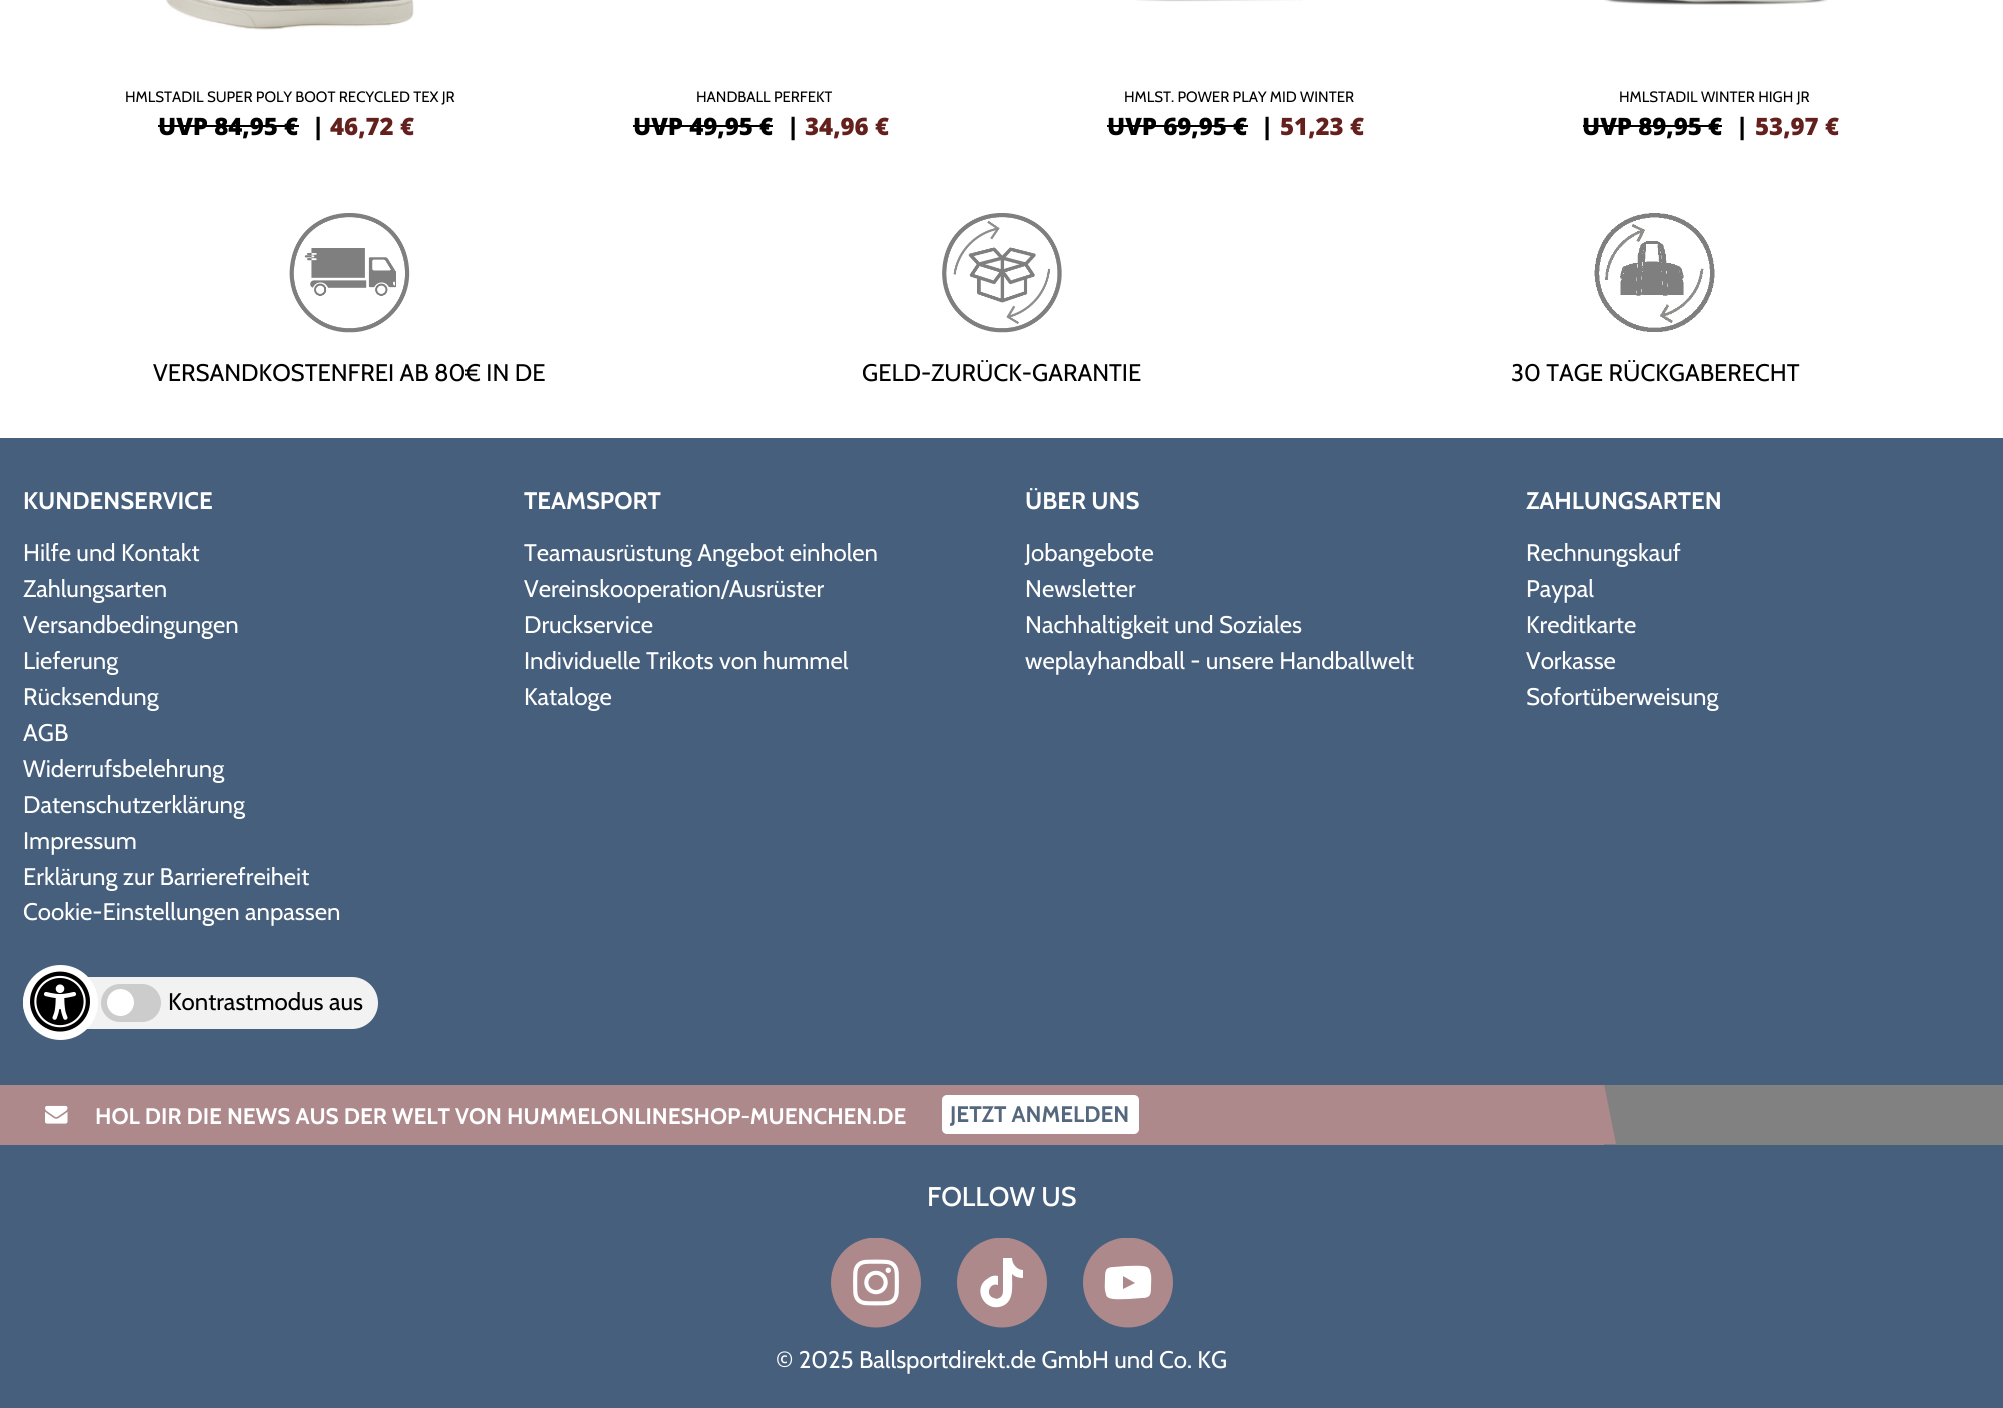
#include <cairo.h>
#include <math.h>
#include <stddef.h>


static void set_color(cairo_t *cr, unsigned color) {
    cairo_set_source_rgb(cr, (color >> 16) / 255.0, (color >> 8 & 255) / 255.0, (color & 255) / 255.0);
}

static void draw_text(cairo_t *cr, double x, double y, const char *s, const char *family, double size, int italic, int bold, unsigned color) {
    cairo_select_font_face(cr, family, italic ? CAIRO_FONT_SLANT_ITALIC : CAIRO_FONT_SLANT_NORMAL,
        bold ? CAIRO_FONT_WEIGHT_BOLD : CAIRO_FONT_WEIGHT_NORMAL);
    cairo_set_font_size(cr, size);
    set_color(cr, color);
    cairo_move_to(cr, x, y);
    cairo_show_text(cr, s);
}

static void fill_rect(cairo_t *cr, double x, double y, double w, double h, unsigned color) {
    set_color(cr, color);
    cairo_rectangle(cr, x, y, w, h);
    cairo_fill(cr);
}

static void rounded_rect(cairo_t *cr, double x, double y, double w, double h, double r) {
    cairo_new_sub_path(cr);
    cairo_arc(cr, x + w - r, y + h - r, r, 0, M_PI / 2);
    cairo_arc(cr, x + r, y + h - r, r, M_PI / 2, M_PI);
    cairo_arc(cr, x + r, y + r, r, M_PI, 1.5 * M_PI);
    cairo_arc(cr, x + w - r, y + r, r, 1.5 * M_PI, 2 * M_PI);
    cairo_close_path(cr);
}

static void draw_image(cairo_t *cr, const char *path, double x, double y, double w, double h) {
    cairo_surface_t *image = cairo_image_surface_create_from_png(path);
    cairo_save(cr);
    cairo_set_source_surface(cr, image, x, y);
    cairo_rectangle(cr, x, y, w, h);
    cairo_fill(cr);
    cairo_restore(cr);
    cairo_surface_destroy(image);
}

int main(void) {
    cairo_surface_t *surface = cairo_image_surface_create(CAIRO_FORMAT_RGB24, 2003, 1408);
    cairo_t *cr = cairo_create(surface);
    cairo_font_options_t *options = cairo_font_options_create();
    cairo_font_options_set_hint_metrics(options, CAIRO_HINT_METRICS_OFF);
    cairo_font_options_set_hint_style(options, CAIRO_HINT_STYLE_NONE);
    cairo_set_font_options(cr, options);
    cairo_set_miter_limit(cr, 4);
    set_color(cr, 0xFFFFFF);
    cairo_paint(cr);
    draw_image(cr, "assets/img1.png", 165, 0, 249, 30);
    draw_text(cr, 125, 102, "HMLSTADIL SUPER POLY BOOT RECYCLED TEX JR", "Cabin", 15, 0, 0, 0x000000);
    draw_text(cr, 158, 135, "UVP 84,95 €", "Open Sans ExtraBold", 24, 0, 0, 0x000000);
    fill_rect(cr, 158, 125, 141, 2, 0x000000);
    draw_text(cr, 312, 135, "|", "Open Sans ExtraBold", 24, 0, 0, 0x000000);
    draw_text(cr, 330, 135, "46,72 €", "Open Sans ExtraBold", 24, 0, 0, 0x63201D);
    draw_text(cr, 696, 102, "HANDBALL PERFEKT", "Cabin", 15, 0, 0, 0x000000);
    draw_text(cr, 633, 135, "UVP 49,95 €", "Open Sans ExtraBold", 24, 0, 0, 0x000000);
    fill_rect(cr, 633, 125, 140, 2, 0x000000);
    draw_text(cr, 787, 135, "|", "Open Sans ExtraBold", 24, 0, 0, 0x000000);
    draw_text(cr, 805, 135, "34,96 €", "Open Sans ExtraBold", 24, 0, 0, 0x63201D);
    draw_image(cr, "assets/img2.png", 1135, 0, 167, 2);
    draw_text(cr, 1124, 102, "HMLST. POWER PLAY MID WINTER", "Cabin", 15, 0, 0, 0x000000);
    draw_text(cr, 1107, 135, "UVP 69,95 €", "Open Sans ExtraBold", 24, 0, 0, 0x000000);
    fill_rect(cr, 1107, 125, 141, 2, 0x000000);
    draw_text(cr, 1261, 135, "|", "Open Sans ExtraBold", 24, 0, 0, 0x000000);
    draw_text(cr, 1280, 135, "51,23 €", "Open Sans ExtraBold", 24, 0, 0, 0x63201D);
    draw_image(cr, "assets/img3.png", 1604, 0, 224, 5);
    draw_text(cr, 1619, 102, "HMLSTADIL WINTER HIGH JR", "Cabin", 15, 0, 0, 0x000000);
    draw_text(cr, 1582, 135, "UVP 89,95 €", "Open Sans ExtraBold", 24, 0, 0, 0x000000);
    fill_rect(cr, 1583, 125, 139, 2, 0x000000);
    draw_text(cr, 1736, 135, "|", "Open Sans ExtraBold", 24, 0, 0, 0x000000);
    draw_text(cr, 1755, 135, "53,97 €", "Open Sans ExtraBold", 24, 0, 0, 0x63201D);
    fill_rect(cr, 0, 438, 2003, 970, 0x465F7D);
    draw_image(cr, "assets/img4.png", 289, 213, 121, 120);
    draw_text(cr, 153, 381, "VERSANDKOSTENFREI AB 80€ IN DE", "Cabin", 24, 0, 0, 0x000000);
    draw_image(cr, "assets/img5.png", 942, 213, 120, 120);
    draw_text(cr, 862, 381, "GELD-ZURÜCK-GARANTIE", "Cabin", 24, 0, 0, 0x000000);
    draw_image(cr, "assets/img6.png", 1594, 213, 121, 119);
    draw_text(cr, 1511, 381, "30 TAGE RÜCKGABERECHT", "Cabin", 24, 0, 0, 0x000000);
    draw_text(cr, 23, 509, "KUNDENSERVICE", "Cabin", 24, 0, 1, 0xFFFFFF);
    draw_text(cr, 23, 561, "Hilfe und Kontakt", "Cabin", 24, 0, 0, 0xFFFFFF);
    draw_text(cr, 23, 597, "Zahlungsarten", "Cabin", 24, 0, 0, 0xFFFFFF);
    draw_text(cr, 23, 633, "Versandbedingungen", "Cabin", 24, 0, 0, 0xFFFFFF);
    draw_text(cr, 23, 669, "Lieferung", "Cabin", 24, 0, 0, 0xFFFFFF);
    draw_text(cr, 23, 705, "Rücksendung", "Cabin", 24, 0, 0, 0xFFFFFF);
    draw_text(cr, 23, 741, "AGB", "Cabin", 24, 0, 0, 0xFFFFFF);
    draw_text(cr, 23, 777, "Widerrufsbelehrung", "Cabin", 24, 0, 0, 0xFFFFFF);
    draw_text(cr, 23, 813, "Datenschutzerklärung", "Cabin", 24, 0, 0, 0xFFFFFF);
    draw_text(cr, 23, 849, "Impressum", "Cabin", 24, 0, 0, 0xFFFFFF);
    draw_text(cr, 23, 885, "Erklärung zur Barrierefreiheit", "Cabin", 24, 0, 0, 0xFFFFFF);
    draw_text(cr, 23, 920, "Cookie-Einstellungen anpassen", "Cabin", 24, 0, 0, 0xFFFFFF);
    set_color(cr, 0xF2F2F2);
    rounded_rect(cr, 23, 977, 355, 52, 26);
    cairo_fill(cr);
    set_color(cr, 0xFFFFFF);
    cairo_arc(cr, 60.5, 1002.5, 37.5, 0, 2 * M_PI);
    cairo_fill(cr);
    draw_image(cr, "assets/img7.png", 30, 971, 60, 61);
    set_color(cr, 0xCCCCCC);
    rounded_rect(cr, 101, 984, 60, 38, 19);
    cairo_fill(cr);
    set_color(cr, 0xFFFFFF);
    cairo_arc(cr, 120.5, 1002.5, 13.5, 0, 2 * M_PI);
    cairo_fill(cr);
    draw_text(cr, 168, 1010, "Kontrastmodus aus", "Cabin", 24, 0, 0, 0x000000);
    draw_text(cr, 524, 509, "TEAMSPORT", "Cabin", 24, 0, 1, 0xFFFFFF);
    draw_text(cr, 524, 561, "Teamausrüstung Angebot einholen", "Cabin", 24, 0, 0, 0xFFFFFF);
    draw_text(cr, 524, 597, "Vereinskooperation/Ausrüster", "Cabin", 24, 0, 0, 0xFFFFFF);
    draw_text(cr, 524, 633, "Druckservice", "Cabin", 24, 0, 0, 0xFFFFFF);
    draw_text(cr, 524, 669, "Individuelle Trikots von hummel", "Cabin", 24, 0, 0, 0xFFFFFF);
    draw_text(cr, 524, 705, "Kataloge", "Cabin", 24, 0, 0, 0xFFFFFF);
    draw_text(cr, 1025, 509, "ÜBER UNS", "Cabin", 24, 0, 1, 0xFFFFFF);
    draw_text(cr, 1025, 561, "Jobangebote", "Cabin", 24, 0, 0, 0xFFFFFF);
    draw_text(cr, 1025, 597, "Newsletter", "Cabin", 24, 0, 0, 0xFFFFFF);
    draw_text(cr, 1025, 633, "Nachhaltigkeit und Soziales", "Cabin", 24, 0, 0, 0xFFFFFF);
    draw_text(cr, 1025, 669, "weplayhandball - unsere Handballwelt", "Cabin", 24, 0, 0, 0xFFFFFF);
    draw_text(cr, 1526, 509, "ZAHLUNGSARTEN", "Cabin", 24, 0, 1, 0xFFFFFF);
    draw_text(cr, 1526, 561, "Rechnungskauf", "Cabin", 24, 0, 0, 0xFFFFFF);
    draw_text(cr, 1526, 597, "Paypal", "Cabin", 24, 0, 0, 0xFFFFFF);
    draw_text(cr, 1526, 633, "Kreditkarte", "Cabin", 24, 0, 0, 0xFFFFFF);
    draw_text(cr, 1526, 669, "Vorkasse", "Cabin", 24, 0, 0, 0xFFFFFF);
    draw_text(cr, 1526, 705, "Sofortüberweisung", "Cabin", 24, 0, 0, 0xFFFFFF);
    fill_rect(cr, 1604, 1085, 399, 60, 0x818181);
    fill_rect(cr, 0, 1085, 1604, 60, 0xAD898C);
    draw_image(cr, "assets/img8.png", 45, 1105, 23, 19);
    draw_text(cr, 95, 1124, "HOL DIR DIE NEWS AUS DER WELT VON HUMMELONLINESHOP-MUENCHEN.DE", "Cabin", 22.5, 0, 1, 0xFFFFFF);
    rounded_rect(cr, 942, 1095, 197, 39, 5);
    cairo_fill(cr);
    draw_text(cr, 950, 1122, "JETZT ANMELDEN", "Cabin", 22.5, 0, 1, 0x54677D);
    set_color(cr, 0xAD898C);
    cairo_new_path(cr);
    cairo_move_to(cr, 1604, 1144);
    cairo_line_to(cr, 1604, 1084);
    cairo_line_to(cr, 1616, 1144);
    cairo_close_path(cr);
    cairo_fill(cr);
    draw_text(cr, 927, 1206, "FOLLOW US", "Cabin Medium", 27, 0, 0, 0xFFFFFF);
    draw_image(cr, "assets/img9.png", 831, 1238, 90, 90);
    cairo_save(cr);
    cairo_rectangle(cr, 957, 1238, 90, 90);
    cairo_clip(cr);
    set_color(cr, 0xAD898C);
    cairo_arc(cr, 1002, 1282.5, 45, 0, 2 * M_PI);
    cairo_fill(cr);
    cairo_restore(cr);
    cairo_new_path(cr);
    cairo_move_to(cr, 1023, 1278);
    cairo_curve_to(cr, 1019, 1278, 1015, 1277, 1012, 1274);
    cairo_curve_to(cr, 1012, 1286, 1015, 1304, 999, 1307);
    cairo_curve_to(cr, 983, 1310, 973, 1288, 987, 1279);
    cairo_curve_to(cr, 991, 1276, 994, 1275, 998, 1276);
    cairo_line_to(cr, 998, 1285);
    cairo_curve_to(cr, 989, 1282, 985, 1296, 994, 1298);
    cairo_curve_to(cr, 996, 1299, 998, 1299, 999, 1298);
    cairo_curve_to(cr, 1002, 1297, 1003, 1294, 1003, 1291);
    cairo_line_to(cr, 1003, 1258);
    cairo_line_to(cr, 1012, 1258);
    cairo_curve_to(cr, 1012, 1264, 1017, 1270, 1023, 1270);
    cairo_close_path(cr);
    cairo_fill(cr);
    cairo_save(cr);
    cairo_rectangle(cr, 1083, 1238, 90, 90);
    cairo_clip(cr);
    set_color(cr, 0xAD898C);
    cairo_arc(cr, 1128, 1282.5, 45, 0, 2 * M_PI);
    cairo_fill(cr);
    cairo_restore(cr);
    cairo_new_path(cr);
    cairo_move_to(cr, 1150, 1271);
    cairo_curve_to(cr, 1150, 1270, 1149, 1268, 1147, 1267);
    cairo_curve_to(cr, 1142, 1265, 1131, 1266, 1126, 1266);
    cairo_line_to(cr, 1114, 1267);
    cairo_curve_to(cr, 1106, 1267, 1105, 1270, 1105, 1278);
    cairo_curve_to(cr, 1105, 1283, 1104, 1289, 1106, 1294);
    cairo_curve_to(cr, 1106, 1296, 1107, 1297, 1109, 1298);
    cairo_curve_to(cr, 1114, 1300, 1123, 1299, 1129, 1299);
    cairo_line_to(cr, 1142, 1298);
    cairo_curve_to(cr, 1150, 1298, 1151, 1295, 1151, 1287);
    cairo_curve_to(cr, 1151, 1282, 1152, 1276, 1150, 1271);
    cairo_close_path(cr);
    cairo_move_to(cr, 1123, 1289);
    cairo_line_to(cr, 1123, 1276);
    cairo_line_to(cr, 1135, 1283);
    cairo_close_path(cr);
    cairo_fill(cr);
    draw_text(cr, 776, 1368, "© 2025 Ballsportdirekt.de GmbH und Co. KG", "Cabin", 24, 0, 0, 0xFFFFFF);
    cairo_surface_write_to_png(surface, "output.png");
    cairo_font_options_destroy(options);
    cairo_destroy(cr);
    cairo_surface_destroy(surface);
    return 0;
}
